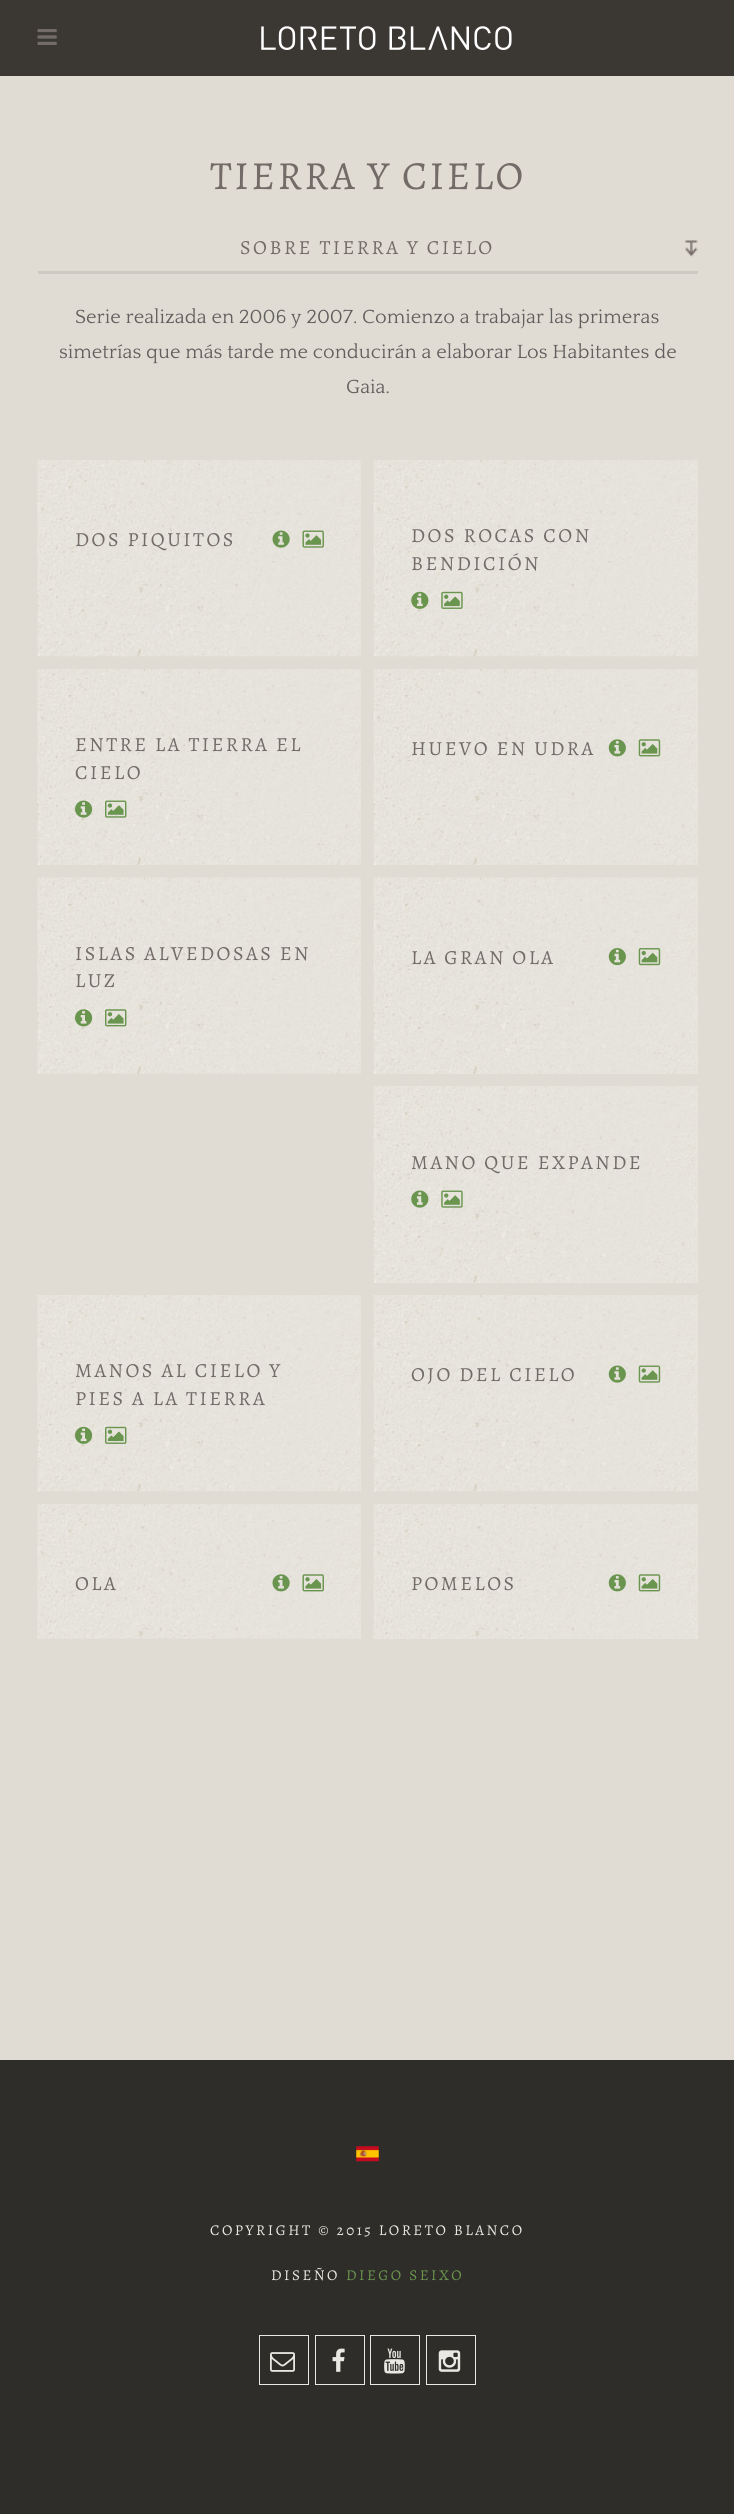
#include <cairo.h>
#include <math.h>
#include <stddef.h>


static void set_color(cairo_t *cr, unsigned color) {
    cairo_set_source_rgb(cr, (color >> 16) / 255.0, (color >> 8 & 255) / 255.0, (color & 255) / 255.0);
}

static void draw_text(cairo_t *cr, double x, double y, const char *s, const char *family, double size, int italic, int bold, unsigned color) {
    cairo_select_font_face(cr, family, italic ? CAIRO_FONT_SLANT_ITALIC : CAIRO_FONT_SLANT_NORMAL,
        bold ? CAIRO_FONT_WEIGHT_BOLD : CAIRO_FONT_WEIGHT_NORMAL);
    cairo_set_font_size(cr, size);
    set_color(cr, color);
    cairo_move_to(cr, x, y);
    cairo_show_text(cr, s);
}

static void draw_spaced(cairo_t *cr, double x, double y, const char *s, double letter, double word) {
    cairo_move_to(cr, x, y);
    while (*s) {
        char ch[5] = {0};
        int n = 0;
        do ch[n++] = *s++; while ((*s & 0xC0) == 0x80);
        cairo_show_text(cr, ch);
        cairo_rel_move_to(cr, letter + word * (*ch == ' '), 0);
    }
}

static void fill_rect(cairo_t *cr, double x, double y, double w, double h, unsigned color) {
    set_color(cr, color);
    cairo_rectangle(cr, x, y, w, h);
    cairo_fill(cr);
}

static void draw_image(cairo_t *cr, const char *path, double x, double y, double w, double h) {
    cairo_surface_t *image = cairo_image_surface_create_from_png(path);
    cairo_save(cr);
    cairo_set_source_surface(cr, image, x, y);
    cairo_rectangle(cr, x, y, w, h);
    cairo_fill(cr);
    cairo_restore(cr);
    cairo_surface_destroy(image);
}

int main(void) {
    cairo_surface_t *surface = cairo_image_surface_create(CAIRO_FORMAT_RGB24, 734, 2514);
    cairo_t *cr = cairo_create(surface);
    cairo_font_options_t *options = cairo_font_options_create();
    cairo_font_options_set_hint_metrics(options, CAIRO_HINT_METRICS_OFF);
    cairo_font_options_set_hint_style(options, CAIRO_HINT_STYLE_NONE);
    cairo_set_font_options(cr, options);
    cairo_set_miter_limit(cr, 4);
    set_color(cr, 0xE0DCD4);
    cairo_paint(cr);
    fill_rect(cr, 0, 0, 734, 76, 0x3B3834);
    draw_image(cr, "assets/img1.png", 37, 29, 20, 16);
    draw_image(cr, "assets/img2.png", 261, 26, 251, 24);
    cairo_select_font_face(cr, "Alegreya", CAIRO_FONT_SLANT_NORMAL, CAIRO_FONT_WEIGHT_NORMAL);
    cairo_set_font_size(cr, 40);
    set_color(cr, 0x736B68);
    draw_spaced(cr, 210, 189, "TIERRA Y CIELO", 2.5, 0);
    draw_image(cr, "assets/img3.png", 685, 240, 13, 17);
    fill_rect(cr, 38, 271, 660, 3, 0xCDCAC4);
    cairo_set_font_size(cr, 20);
    set_color(cr, 0x736B68);
    draw_spaced(cr, 240, 254, "SOBRE TIERRA Y CIELO", 2.5, 0);
    draw_text(cr, 75, 323, "Serie realizada en 2006 y 2007. Comienzo a trabajar las primeras", "Quattrocento", 20, 0, 0, 0x615F5D);
    draw_text(cr, 59, 358, "simetrías que más tarde me conducirán a elaborar Los Habitantes de", "Quattrocento", 20, 0, 0, 0x615F5D);
    draw_text(cr, 346, 393, "Gaia.", "Quattrocento", 20, 0, 0, 0x615F5D);
    draw_image(cr, "assets/img4.png", 37, 460, 324, 197);
    cairo_select_font_face(cr, "Alegreya", CAIRO_FONT_SLANT_NORMAL, CAIRO_FONT_WEIGHT_NORMAL);
    set_color(cr, 0x736B68);
    draw_spaced(cr, 75, 546, "DOS PIQUITOS", 2.5, 0);
    draw_image(cr, "assets/img5.png", 272, 530, 18, 18);
    draw_image(cr, "assets/img6.png", 302, 530, 22, 18);
    fill_rect(cr, 697, 460, 1, 196, 0xE8E6DE);
    draw_image(cr, "assets/img7.png", 373, 460, 325, 197);
    set_color(cr, 0x736B68);
    draw_spaced(cr, 411, 542, "DOS ROCAS CON", 2.5, 0);
    draw_spaced(cr, 411, 570, "BENDICIÓN", 2.5, 0);
    draw_image(cr, "assets/img8.png", 411, 591, 18, 18);
    draw_image(cr, "assets/img9.png", 441, 591, 22, 18);
    draw_image(cr, "assets/img10.png", 37, 669, 324, 196);
    draw_spaced(cr, 75, 751, "ENTRE LA TIERRA EL", 2.5, 0);
    draw_spaced(cr, 75, 779, "CIELO", 2.5, 0);
    draw_image(cr, "assets/img11.png", 75, 800, 18, 18);
    draw_image(cr, "assets/img12.png", 105, 800, 22, 18);
    fill_rect(cr, 697, 669, 1, 196, 0xE8E6DE);
    draw_image(cr, "assets/img13.png", 373, 669, 325, 196);
    set_color(cr, 0x736B68);
    draw_spaced(cr, 411, 755, "HUEVO EN UDRA", 2.5, 0);
    draw_image(cr, "assets/img14.png", 608, 739, 18, 18);
    draw_image(cr, "assets/img15.png", 638, 739, 23, 18);
    draw_image(cr, "assets/img16.png", 37, 877, 324, 197);
    draw_spaced(cr, 75, 960, "ISLAS ALVEDOSAS EN", 2.5, 0);
    draw_spaced(cr, 75, 987, "LUZ", 2.5, 0);
    draw_image(cr, "assets/img17.png", 75, 1009, 18, 18);
    draw_image(cr, "assets/img18.png", 105, 1009, 22, 18);
    fill_rect(cr, 374, 878, 324, 196, 0xE8E6DE);
    draw_image(cr, "assets/img19.png", 373, 877, 325, 197);
    set_color(cr, 0x736B68);
    draw_spaced(cr, 411, 964, "LA GRAN OLA", 2.5, 0);
    draw_image(cr, "assets/img20.png", 608, 948, 18, 18);
    draw_image(cr, "assets/img21.png", 638, 948, 23, 18);
    fill_rect(cr, 374, 1086, 324, 197, 0xE8E6DE);
    draw_image(cr, "assets/img22.png", 373, 1086, 325, 197);
    set_color(cr, 0x736B68);
    draw_spaced(cr, 411, 1169, "MANO QUE EXPANDE", 2.5, 0);
    draw_image(cr, "assets/img23.png", 411, 1190, 18, 18);
    draw_image(cr, "assets/img24.png", 441, 1190, 22, 18);
    draw_image(cr, "assets/img4.png", 37, 1295, 324, 197);
    draw_spaced(cr, 75, 1377, "MANOS AL CIELO Y", 2.5, 0);
    draw_spaced(cr, 75, 1405, "PIES A LA TIERRA", 2.5, 0);
    draw_image(cr, "assets/img25.png", 75, 1426, 18, 18);
    draw_image(cr, "assets/img26.png", 105, 1426, 22, 18);
    fill_rect(cr, 697, 1295, 1, 196, 0xE8E6DE);
    draw_image(cr, "assets/img7.png", 373, 1295, 325, 197);
    set_color(cr, 0x736B68);
    draw_spaced(cr, 411, 1381, "OJO DEL CIELO", 2.5, 0);
    draw_image(cr, "assets/img27.png", 608, 1365, 18, 18);
    draw_image(cr, "assets/img28.png", 638, 1365, 23, 18);
    draw_image(cr, "assets/img29.png", 37, 1504, 324, 135);
    draw_spaced(cr, 75, 1590, "OLA", 2.5, 0);
    draw_image(cr, "assets/img30.png", 272, 1574, 18, 18);
    draw_image(cr, "assets/img31.png", 302, 1574, 22, 18);
    fill_rect(cr, 374, 1504, 324, 135, 0xE8E6DE);
    draw_image(cr, "assets/img32.png", 373, 1504, 325, 135);
    set_color(cr, 0x736B68);
    draw_spaced(cr, 411, 1590, "POMELOS", 2.5, 0);
    draw_image(cr, "assets/img14.png", 608, 1574, 18, 18);
    draw_image(cr, "assets/img15.png", 638, 1574, 23, 18);
    fill_rect(cr, 0, 2060, 734, 454, 0x2F2D29);
    draw_image(cr, "assets/img33.png", 356, 2146, 23, 16);
    cairo_set_font_size(cr, 15);
    set_color(cr, 0xEAE8E3);
    draw_spaced(cr, 210, 2235, "COPYRIGHT © 2015 LORETO BLANCO", 2.5, 0);
    draw_spaced(cr, 271, 2280, "DISEÑO", 2.5, 0);
    set_color(cr, 0x6A954F);
    draw_spaced(cr, 346, 2280, "DIEGO SEIXO", 2.5, 0);
    cairo_rectangle(cr, 259.5, 2335.5, 49, 49);
    set_color(cr, 0xEAE8E3);
    cairo_set_line_width(cr, 1);
    cairo_stroke(cr);
    draw_image(cr, "assets/img34.png", 270, 2352, 25, 20);
    cairo_rectangle(cr, 315.5, 2335.5, 49, 49);
    cairo_stroke(cr);
    draw_image(cr, "assets/img35.png", 332, 2348, 13, 24);
    cairo_rectangle(cr, 370.5, 2335.5, 49, 49);
    cairo_stroke(cr);
    draw_image(cr, "assets/img36.png", 384, 2348, 21, 26);
    cairo_rectangle(cr, 426.5, 2335.5, 49, 49);
    cairo_stroke(cr);
    draw_image(cr, "assets/img37.png", 438, 2350, 23, 22);
    cairo_surface_write_to_png(surface, "output.png");
    cairo_font_options_destroy(options);
    cairo_destroy(cr);
    cairo_surface_destroy(surface);
    return 0;
}
